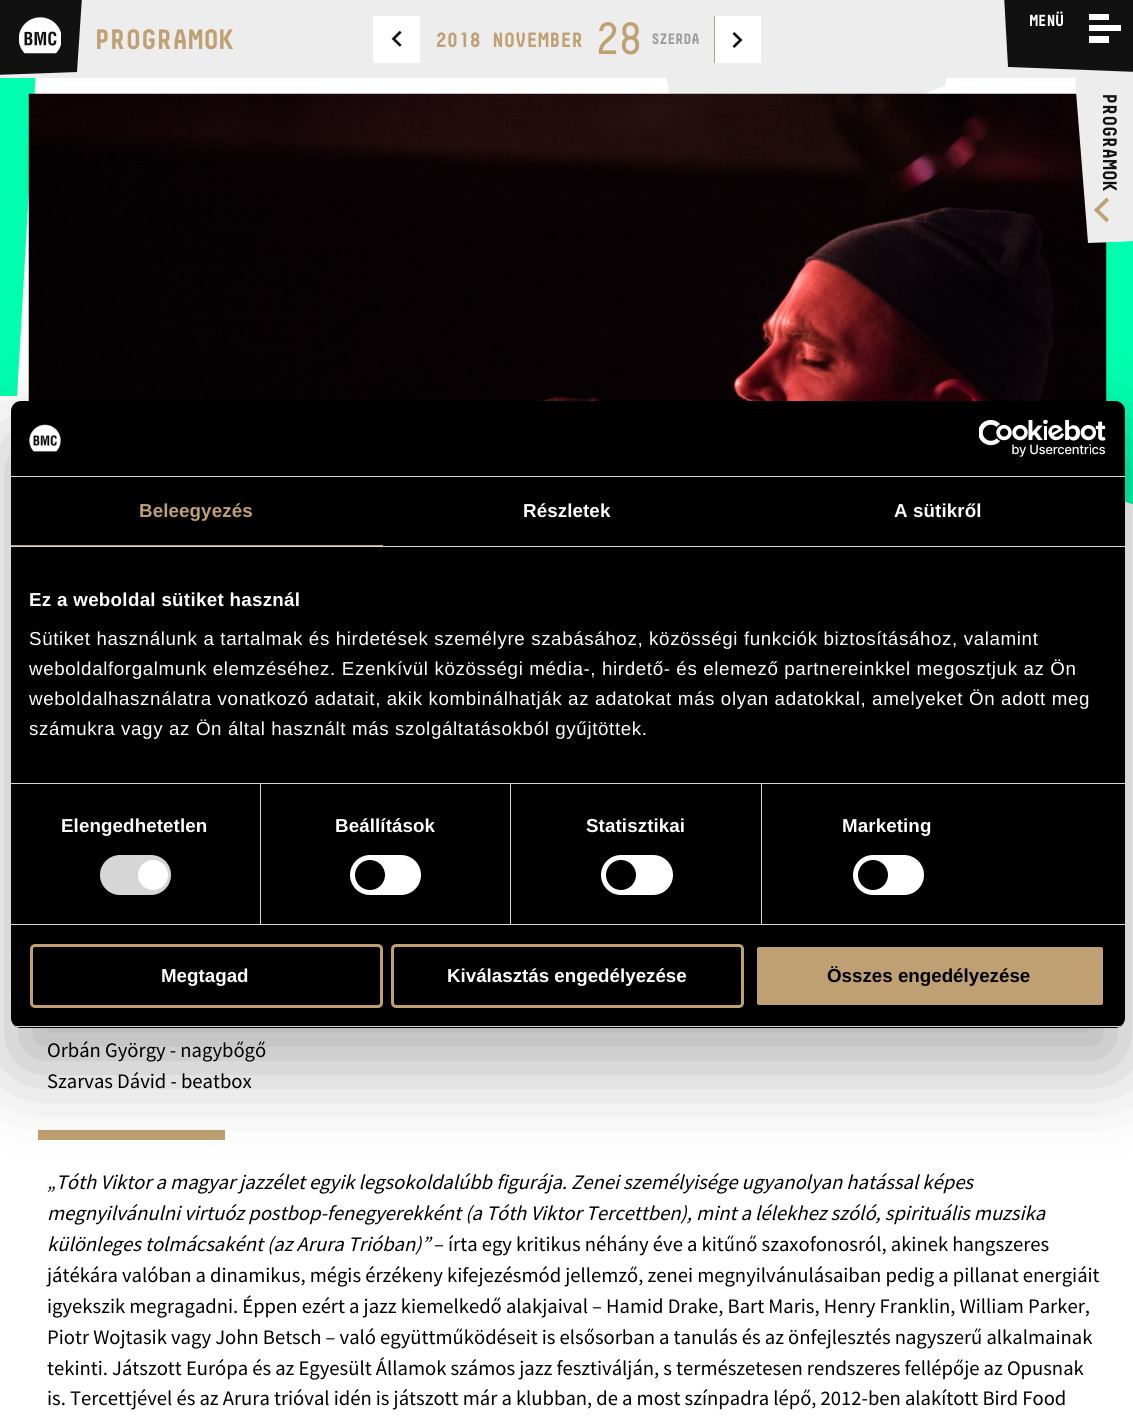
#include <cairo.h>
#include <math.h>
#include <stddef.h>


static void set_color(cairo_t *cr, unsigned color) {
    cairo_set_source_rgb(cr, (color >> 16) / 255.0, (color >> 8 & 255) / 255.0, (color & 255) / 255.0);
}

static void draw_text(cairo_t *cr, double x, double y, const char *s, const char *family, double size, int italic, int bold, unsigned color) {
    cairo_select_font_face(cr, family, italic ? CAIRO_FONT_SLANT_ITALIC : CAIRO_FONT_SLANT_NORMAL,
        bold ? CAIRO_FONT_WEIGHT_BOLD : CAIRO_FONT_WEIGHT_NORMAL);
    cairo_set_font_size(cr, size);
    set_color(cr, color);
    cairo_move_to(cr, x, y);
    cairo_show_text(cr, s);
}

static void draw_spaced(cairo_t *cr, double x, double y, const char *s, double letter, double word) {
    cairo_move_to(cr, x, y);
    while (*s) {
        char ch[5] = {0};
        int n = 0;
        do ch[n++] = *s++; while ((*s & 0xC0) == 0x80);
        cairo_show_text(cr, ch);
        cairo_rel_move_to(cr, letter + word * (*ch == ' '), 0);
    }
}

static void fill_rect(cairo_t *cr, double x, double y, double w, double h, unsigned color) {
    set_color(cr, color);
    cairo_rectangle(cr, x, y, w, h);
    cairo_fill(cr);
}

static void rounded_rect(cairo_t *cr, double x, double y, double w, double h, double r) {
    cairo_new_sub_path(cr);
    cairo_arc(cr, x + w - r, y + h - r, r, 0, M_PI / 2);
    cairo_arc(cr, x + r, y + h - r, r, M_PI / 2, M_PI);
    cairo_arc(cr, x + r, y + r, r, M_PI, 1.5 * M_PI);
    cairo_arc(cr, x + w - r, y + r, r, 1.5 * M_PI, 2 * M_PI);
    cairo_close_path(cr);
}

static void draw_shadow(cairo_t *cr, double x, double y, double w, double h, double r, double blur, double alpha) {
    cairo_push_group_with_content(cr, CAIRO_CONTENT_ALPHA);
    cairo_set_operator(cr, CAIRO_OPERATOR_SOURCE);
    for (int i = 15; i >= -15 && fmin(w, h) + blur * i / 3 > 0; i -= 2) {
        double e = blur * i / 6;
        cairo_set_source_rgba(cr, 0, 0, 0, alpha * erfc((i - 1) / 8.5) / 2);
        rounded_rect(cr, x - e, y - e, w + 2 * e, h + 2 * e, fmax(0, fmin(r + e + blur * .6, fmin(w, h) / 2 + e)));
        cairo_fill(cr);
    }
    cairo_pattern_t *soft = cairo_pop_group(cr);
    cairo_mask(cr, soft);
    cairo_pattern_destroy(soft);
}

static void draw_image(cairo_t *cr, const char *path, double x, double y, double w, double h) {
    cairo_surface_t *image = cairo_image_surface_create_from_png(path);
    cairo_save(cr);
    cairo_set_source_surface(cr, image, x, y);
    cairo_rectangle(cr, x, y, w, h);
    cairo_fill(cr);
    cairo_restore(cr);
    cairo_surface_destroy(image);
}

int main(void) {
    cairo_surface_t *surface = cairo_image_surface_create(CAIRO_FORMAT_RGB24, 1133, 1427);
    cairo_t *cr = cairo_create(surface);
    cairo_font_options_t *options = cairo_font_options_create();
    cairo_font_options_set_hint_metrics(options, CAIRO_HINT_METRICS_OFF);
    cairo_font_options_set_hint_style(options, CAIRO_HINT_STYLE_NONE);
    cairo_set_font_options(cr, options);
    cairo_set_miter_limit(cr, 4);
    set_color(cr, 0xFFFFFF);
    cairo_paint(cr);
    cairo_save(cr);
    cairo_rectangle(cr, 0, 0, 40, 396);
    cairo_clip(cr);
    set_color(cr, 0x00FFAE);
    cairo_new_path(cr);
    cairo_move_to(cr, 0, 0);
    cairo_line_to(cr, 40, 0);
    cairo_line_to(cr, 17, 397);
    cairo_line_to(cr, -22, 397);
    cairo_close_path(cr);
    cairo_fill(cr);
    cairo_restore(cr);
    set_color(cr, 0xEDEDED);
    cairo_new_path(cr);
    cairo_move_to(cr, 676, 112);
    cairo_line_to(cr, 670, 97);
    cairo_line_to(cr, 665, 72);
    cairo_curve_to(cr, 661, 38, 670, 4, 689, -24);
    cairo_curve_to(cr, 729, -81, 803, -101, 866, -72);
    cairo_curve_to(cr, 927, -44, 959, 22, 945, 86);
    cairo_line_to(cr, 719, 168);
    cairo_curve_to(cr, 700, 154, 685, 135, 676, 112);
    cairo_close_path(cr);
    cairo_fill(cr);
    fill_rect(cr, 0, 0, 1075, 78, 0xEDEDED);
    set_color(cr, 0x111111);
    cairo_new_path(cr);
    cairo_move_to(cr, 0, 0);
    cairo_line_to(cr, 82, -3);
    cairo_line_to(cr, 77, 72);
    cairo_line_to(cr, -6, 75);
    cairo_close_path(cr);
    cairo_fill(cr);
    draw_image(cr, "assets/img1.png", 19, 17, 42, 37);
    set_color(cr, 0x00FFAE);
    cairo_new_path(cr);
    cairo_move_to(cr, 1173, 226);
    cairo_line_to(cr, 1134, 226);
    cairo_line_to(cr, 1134, 510);
    cairo_line_to(cr, 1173, 510);
    cairo_curve_to(cr, 1094.5, 510, 1031, 446.5, 1031, 368);
    cairo_curve_to(cr, 1031, 289.5, 1094.5, 226, 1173, 226);
    cairo_close_path(cr);
    cairo_fill(cr);
    draw_image(cr, "assets/img4.png", 28, 93, 1079, 308);
    set_color(cr, 0xEDEDED);
    cairo_new_path(cr);
    cairo_move_to(cr, 1069, 3);
    cairo_line_to(cr, 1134, 0);
    cairo_line_to(cr, 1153, 240);
    cairo_line_to(cr, 1088, 243);
    cairo_close_path(cr);
    cairo_fill(cr);
    set_color(cr, 0x111111);
    cairo_new_path(cr);
    cairo_move_to(cr, 1004, -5);
    cairo_line_to(cr, 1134, 0);
    cairo_line_to(cr, 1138, 72);
    cairo_line_to(cr, 1008, 67);
    cairo_close_path(cr);
    cairo_fill(cr);
    cairo_select_font_face(cr, "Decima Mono", CAIRO_FONT_SLANT_NORMAL, CAIRO_FONT_WEIGHT_BOLD);
    cairo_set_font_size(cr, 16);
    set_color(cr, 0xFFFFFF);
    draw_spaced(cr, 1029, 26, "MENÜ", -1, 0);
    fill_rect(cr, 1089, 25, 32, 6, 0xFFFFFF);
    fill_rect(cr, 1089, 14, 20, 6, 0xFFFFFF);
    fill_rect(cr, 1089, 36, 20, 7, 0xFFFFFF);
    set_color(cr, 0xEDEDED);
    cairo_new_path(cr);
    cairo_move_to(cr, 1088, 243);
    cairo_line_to(cr, 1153, 239);
    cairo_line_to(cr, 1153, 240);
    cairo_close_path(cr);
    cairo_fill(cr);
    cairo_set_font_size(cr, 19.5);
    set_color(cr, 0x111111);
    cairo_save(cr);
    cairo_translate(cr, 1103, 93);
    cairo_rotate(cr, 90 * M_PI / 180);
    draw_spaced(cr, 0, 0, "PROGRAMOK", -0.75, 0);
    cairo_restore(cr);
    set_color(cr, 0xBFA072);
    cairo_new_path(cr);
    cairo_move_to(cr, 1096.5, 207.5);
    cairo_line_to(cr, 1109, 219.5);
    cairo_line_to(cr, 1106.5, 222.5);
    cairo_line_to(cr, 1094, 210);
    cairo_close_path(cr);
    cairo_fill(cr);
    cairo_new_path(cr);
    cairo_move_to(cr, 1106.5, 197.5);
    cairo_line_to(cr, 1109, 200.5);
    cairo_line_to(cr, 1096.5, 212.5);
    cairo_line_to(cr, 1094, 210);
    cairo_close_path(cr);
    cairo_fill(cr);
    cairo_set_font_size(cr, 28);
    draw_spaced(cr, 94, 49, "PROGRAMOK", -1.25, 0);
    fill_rect(cr, 373, 16, 47, 47, 0xFFFFFF);
    draw_image(cr, "assets/img2.png", 391, 31, 11, 16);
    cairo_set_font_size(cr, 20.62);
    set_color(cr, 0xBFA072);
    draw_spaced(cr, 435, 47, "2018 NOVEMBER", -1, 0);
    cairo_select_font_face(cr, "Decima Mono", CAIRO_FONT_SLANT_NORMAL, CAIRO_FONT_WEIGHT_NORMAL);
    cairo_set_font_size(cr, 45);
    draw_spaced(cr, 594, 54, "28", -4, 0);
    cairo_select_font_face(cr, "Decima Mono", CAIRO_FONT_SLANT_NORMAL, CAIRO_FONT_WEIGHT_BOLD);
    cairo_set_font_size(cr, 15);
    set_color(cr, 0x999999);
    draw_spaced(cr, 651, 44, "SZERDA", -1, 0);
    fill_rect(cr, 715, 16, 46, 47, 0xFFFFFF);
    fill_rect(cr, 714, 16, 1, 47, 0xBFA072);
    draw_image(cr, "assets/img3.png", 732, 32, 11, 16);
    draw_text(cr, 47, 1057, "Orbán György - nagybőgő", "Source Sans Pro", 20.62, 0, 0, 0x000000);
    draw_text(cr, 47, 1088, "Szarvas Dávid - beatbox", "Source Sans Pro", 20.62, 0, 0, 0x000000);
    fill_rect(cr, 38, 1130, 187, 10, 0xBFA072);
    draw_text(cr, 47, 1189, "„Tóth Viktor a magyar jazzélet egyik legsokoldalúbb figurája. Zenei személyisége ugyanolyan hatással képes", "Source Sans Pro", 20.62, 1, 0, 0x000000);
    draw_text(cr, 47, 1220, "megnyilvánulni virtuóz postbop-fenegyerekként (a Tóth Viktor Tercettben), mint a lélekhez szóló, spirituális muzsika", "Source Sans Pro", 20.62, 1, 0, 0x000000);
    draw_text(cr, 47, 1251, "különleges tolmácsaként (az Arura Trióban)”", "Source Sans Pro", 20.62, 1, 0, 0x000000);
    draw_text(cr, 434, 1251, "– írta egy kritikus néhány éve a kitűnő szaxofonosról, akinek hangszeres", "Source Sans Pro", 20.62, 0, 0, 0x000000);
    draw_text(cr, 47, 1282, "játékára valóban a dinamikus, mégis érzékeny kifejezésmód jellemző, zenei megnyilvánulásaiban pedig a pillanat energiáit", "Source Sans Pro", 20.62, 0, 0, 0x000000);
    draw_text(cr, 47, 1313, "igyekszik megragadni. Éppen ezért a jazz kiemelkedő alakjaival – Hamid Drake, Bart Maris, Henry Franklin, William Parker,", "Source Sans Pro", 20.62, 0, 0, 0x000000);
    draw_text(cr, 47, 1344, "Piotr Wojtasik vagy John Betsch – való együttműködéseit is elsősorban a tanulás és az önfejlesztés nagyszerű alkalmainak", "Source Sans Pro", 20.62, 0, 0, 0x000000);
    draw_text(cr, 47, 1375, "tekinti. Játszott Európa és az Egyesült Államok számos jazz fesztiválján, s természetesen rendszeres fellépője az Opusnak", "Source Sans Pro", 20.62, 0, 0, 0x000000);
    draw_text(cr, 47, 1405, "is. Tercettjével és az Arura trióval idén is játszott már a klubban, de a most színpadra lépő, 2012-ben alakított Bird Food", "Source Sans Pro", 20.62, 0, 0, 0x000000);
    set_color(cr, 0x000000);
    draw_shadow(cr, 11, 441, 1114, 627, 10, 42.5, 0.3);
    set_color(cr, 0x000000);
    rounded_rect(cr, 11, 401, 1114, 627, 10);
    cairo_fill(cr);
    fill_rect(cr, 11, 476, 1114, 1, 0xD6D6D6);
    draw_image(cr, "assets/img5.png", 29, 424, 32, 28);
    draw_image(cr, "assets/img6.png", 979, 420, 127, 37);
    fill_rect(cr, 11, 546, 1114, 1, 0xD6D6D6);
    fill_rect(cr, 11, 545, 372, 1, 0xBFA072);
    cairo_select_font_face(cr, "Liberation Sans", CAIRO_FONT_SLANT_NORMAL, CAIRO_FONT_WEIGHT_BOLD);
    cairo_set_font_size(cr, 18.75);
    draw_spaced(cr, 139, 517, "Beleegyezés", 0.1, 0);
    set_color(cr, 0xFFFFFF);
    draw_spaced(cr, 523, 517, "Részletek", 0.1, 0);
    draw_spaced(cr, 894, 517, "A sütikről", 0.1, 0);
    fill_rect(cr, 11, 783, 1114, 1, 0xD6D6D6);
    set_color(cr, 0xFFFFFF);
    draw_spaced(cr, 29, 606, "Ez a weboldal sütiket használ", 0.3, 0);
    cairo_select_font_face(cr, "Liberation Sans", CAIRO_FONT_SLANT_NORMAL, CAIRO_FONT_WEIGHT_NORMAL);
    draw_spaced(cr, 29, 645, "Sütiket használunk a tartalmak és hirdetések személyre szabásához, közösségi funkciók biztosításához, valamint", 0.62, 0);
    draw_spaced(cr, 29, 675, "weboldalforgalmunk elemzéséhez. Ezenkívül közösségi média-, hirdető- és elemező partnereinkkel megosztjuk az Ön", 0.62, 0);
    draw_spaced(cr, 29, 705, "weboldalhasználatra vonatkozó adatait, akik kombinálhatják az adatokat más olyan adatokkal, amelyeket Ön adott meg", 0.62, 0);
    draw_spaced(cr, 29, 735, "számukra vagy az Ön által használt más szolgáltatásokból gyűjtöttek.", 0.62, 0);
    fill_rect(cr, 11, 924, 1114, 1, 0xD6D6D6);
    fill_rect(cr, 260, 784, 1, 140, 0xD6D6D6);
    cairo_select_font_face(cr, "Liberation Sans", CAIRO_FONT_SLANT_NORMAL, CAIRO_FONT_WEIGHT_BOLD);
    set_color(cr, 0xFFFFFF);
    draw_spaced(cr, 61, 832, "Elengedhetetlen", 0.1, 0);
    set_color(cr, 0xD6D6D6);
    rounded_rect(cr, 100, 855, 71, 40, 20);
    cairo_fill(cr);
    set_color(cr, 0xFFFFFF);
    cairo_arc(cr, 153, 875, 15, 0, 2 * M_PI);
    cairo_fill(cr);
    fill_rect(cr, 510, 784, 1, 140, 0xD6D6D6);
    set_color(cr, 0xFFFFFF);
    draw_spaced(cr, 335, 832, "Beállítások", 0.1, 0);
    rounded_rect(cr, 350, 855, 71, 40, 20);
    cairo_fill(cr);
    set_color(cr, 0x000000);
    cairo_arc(cr, 370, 875, 15, 0, 2 * M_PI);
    cairo_fill(cr);
    fill_rect(cr, 761, 784, 1, 140, 0xD6D6D6);
    set_color(cr, 0xFFFFFF);
    draw_spaced(cr, 586, 832, "Statisztikai", 0.1, 0);
    rounded_rect(cr, 601, 855, 72, 40, 20);
    cairo_fill(cr);
    set_color(cr, 0x000000);
    cairo_arc(cr, 621, 875, 15, 0, 2 * M_PI);
    cairo_fill(cr);
    set_color(cr, 0xFFFFFF);
    draw_spaced(cr, 842, 832, "Marketing", 0.1, 0);
    rounded_rect(cr, 853, 855, 71, 40, 20);
    cairo_fill(cr);
    set_color(cr, 0x000000);
    cairo_arc(cr, 873, 875, 15, 0, 2 * M_PI);
    cairo_fill(cr);
    cairo_save(cr);
    rounded_rect(cr, 11, 401, 1114, 627, 10);
    cairo_clip(cr);
    fill_rect(cr, 11, 1026, 1114, 1, 0xD6D6D6);
    cairo_restore(cr);
    rounded_rect(cr, 31.5, 945.5, 350, 61, 3.5);
    set_color(cr, 0xBFA072);
    cairo_set_line_width(cr, 3);
    cairo_stroke(cr);
    draw_text(cr, 161, 982, "Megtagad", "Liberation Sans", 18.75, 0, 1, 0xFFFFFF);
    rounded_rect(cr, 392.5, 945.5, 350, 61, 3.5);
    set_color(cr, 0xBFA072);
    cairo_stroke(cr);
    draw_text(cr, 447, 982, "Kiválasztás engedélyezése", "Liberation Sans", 18.75, 0, 1, 0xFFFFFF);
    set_color(cr, 0xBFA072);
    rounded_rect(cr, 755.5, 945.5, 349, 61, 3.5);
    cairo_fill_preserve(cr);
    set_color(cr, 0x000000);
    cairo_stroke(cr);
    draw_text(cr, 827, 982, "Összes engedélyezése", "Liberation Sans", 18.75, 0, 1, 0x000000);
    cairo_surface_write_to_png(surface, "output.png");
    cairo_font_options_destroy(options);
    cairo_destroy(cr);
    cairo_surface_destroy(surface);
    return 0;
}
